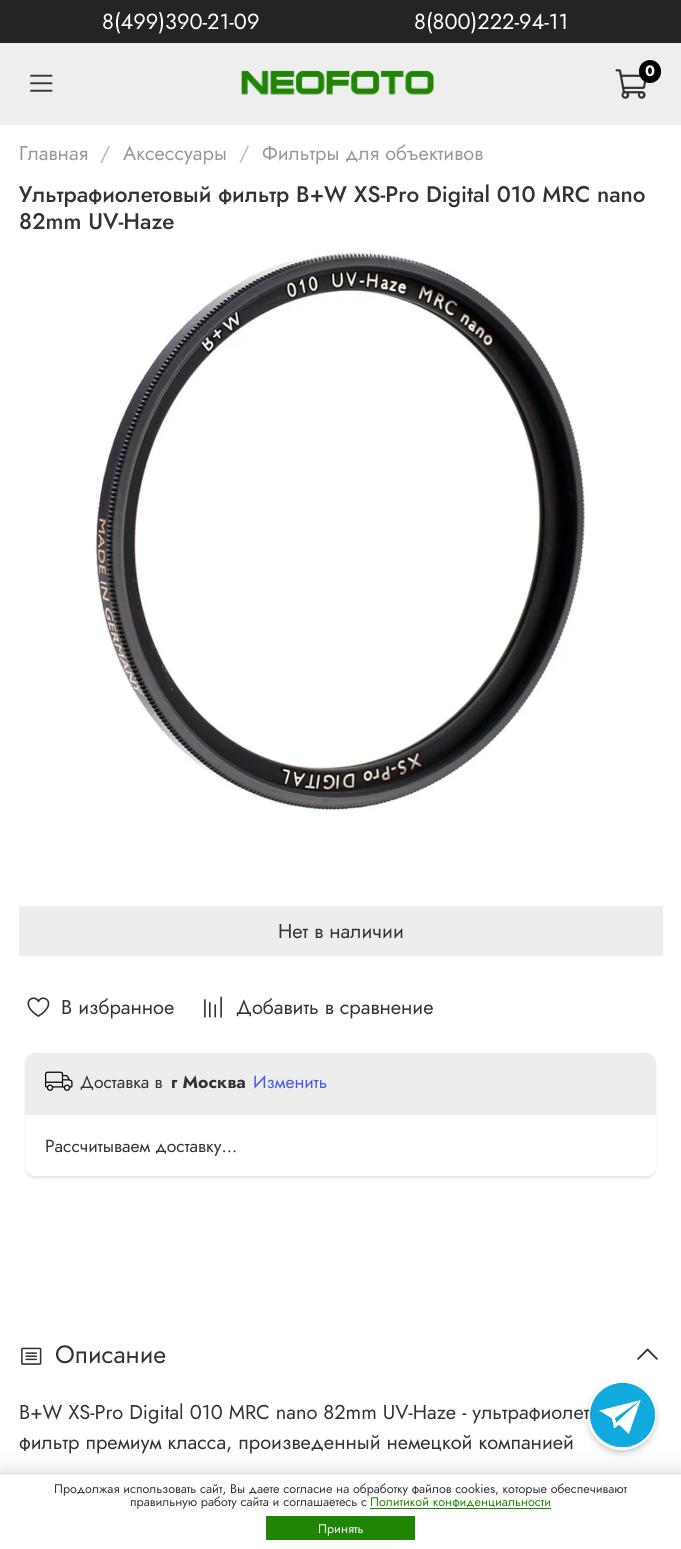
#include <cairo.h>
#include <math.h>
#include <stddef.h>


static void set_color(cairo_t *cr, unsigned color) {
    cairo_set_source_rgb(cr, (color >> 16) / 255.0, (color >> 8 & 255) / 255.0, (color & 255) / 255.0);
}

static void draw_text(cairo_t *cr, double x, double y, const char *s, const char *family, double size, int italic, int bold, unsigned color) {
    cairo_select_font_face(cr, family, italic ? CAIRO_FONT_SLANT_ITALIC : CAIRO_FONT_SLANT_NORMAL,
        bold ? CAIRO_FONT_WEIGHT_BOLD : CAIRO_FONT_WEIGHT_NORMAL);
    cairo_set_font_size(cr, size);
    set_color(cr, color);
    cairo_move_to(cr, x, y);
    cairo_show_text(cr, s);
}

static void fill_rect(cairo_t *cr, double x, double y, double w, double h, unsigned color) {
    set_color(cr, color);
    cairo_rectangle(cr, x, y, w, h);
    cairo_fill(cr);
}

static void rounded_rect(cairo_t *cr, double x, double y, double w, double h, double r) {
    cairo_new_sub_path(cr);
    cairo_arc(cr, x + w - r, y + h - r, r, 0, M_PI / 2);
    cairo_arc(cr, x + r, y + h - r, r, M_PI / 2, M_PI);
    cairo_arc(cr, x + r, y + r, r, M_PI, 1.5 * M_PI);
    cairo_arc(cr, x + w - r, y + r, r, 1.5 * M_PI, 2 * M_PI);
    cairo_close_path(cr);
}

static void draw_shadow(cairo_t *cr, double x, double y, double w, double h, double r, double blur, double alpha) {
    cairo_push_group_with_content(cr, CAIRO_CONTENT_ALPHA);
    cairo_set_operator(cr, CAIRO_OPERATOR_SOURCE);
    for (int i = 15; i >= -15 && fmin(w, h) + blur * i / 3 > 0; i -= 2) {
        double e = blur * i / 6;
        cairo_set_source_rgba(cr, 0, 0, 0, alpha * erfc((i - 1) / 8.5) / 2);
        rounded_rect(cr, x - e, y - e, w + 2 * e, h + 2 * e, fmax(0, fmin(r + e + blur * .6, fmin(w, h) / 2 + e)));
        cairo_fill(cr);
    }
    cairo_pattern_t *soft = cairo_pop_group(cr);
    cairo_mask(cr, soft);
    cairo_pattern_destroy(soft);
}

static void draw_image(cairo_t *cr, const char *path, double x, double y, double w, double h) {
    cairo_surface_t *image = cairo_image_surface_create_from_png(path);
    cairo_save(cr);
    cairo_set_source_surface(cr, image, x, y);
    cairo_rectangle(cr, x, y, w, h);
    cairo_fill(cr);
    cairo_restore(cr);
    cairo_surface_destroy(image);
}

int main(void) {
    cairo_surface_t *surface = cairo_image_surface_create(CAIRO_FORMAT_RGB24, 681, 1549);
    cairo_t *cr = cairo_create(surface);
    cairo_font_options_t *options = cairo_font_options_create();
    cairo_font_options_set_hint_metrics(options, CAIRO_HINT_METRICS_OFF);
    cairo_font_options_set_hint_style(options, CAIRO_HINT_STYLE_NONE);
    cairo_set_font_options(cr, options);
    cairo_set_miter_limit(cr, 4);
    set_color(cr, 0xFFFFFF);
    cairo_paint(cr);
    fill_rect(cr, 0, 43, 681, 82, 0xEEEEEE);
    fill_rect(cr, 0, 0, 681, 43, 0x242424);
    draw_text(cr, 102, 29, "8(499)390-21-09", "Jost", 21.75, 0, 0, 0xFFFFFF);
    draw_text(cr, 414, 29, "8(800)222-94-11", "Jost", 21.75, 0, 0, 0xFFFFFF);
    draw_image(cr, "assets/img1.png", 30, 74, 23, 18);
    draw_image(cr, "assets/img2.png", 241, 70, 194, 25);
    draw_image(cr, "assets/img3.png", 615, 69, 31, 30);
    set_color(cr, 0x000000);
    rounded_rect(cr, 639, 60, 22, 23, 11);
    cairo_fill(cr);
    draw_text(cr, 645, 76, "0", "Jost", 15, 0, 1, 0xFFFFFF);
    draw_text(cr, 19, 160, "Главная", "Jost", 20, 0, 0, 0x999999);
    draw_text(cr, 100, 160, "/", "Jost", 20, 0, 0, 0xB8B8B8);
    draw_text(cr, 123, 160, "Аксессуары", "Jost", 20, 0, 0, 0x999999);
    draw_text(cr, 239, 160, "/", "Jost", 20, 0, 0, 0xB8B8B8);
    draw_text(cr, 262, 160, "Фильтры для объективов", "Jost", 20, 0, 0, 0x999999);
    draw_text(cr, 19, 202, "Ультрафиолетовый фильтр B+W XS-Pro Digital 010 MRC nano", "Jost Medium", 22.5, 0, 0, 0x333333);
    draw_text(cr, 19, 229, "82mm UV-Haze", "Jost Medium", 22.5, 0, 0, 0x333333);
    draw_image(cr, "assets/img4.png", 93, 251, 494, 560);
    fill_rect(cr, 19, 906, 644, 50, 0xEDEDED);
    draw_text(cr, 278, 938, "Нет в наличии", "Jost", 20, 0, 0, 0x333333);
    draw_image(cr, "assets/img5.png", 27, 997, 23, 20);
    draw_text(cr, 61, 1014, "В избранное", "Jost", 20, 0, 0, 0x333333);
    draw_image(cr, "assets/img6.png", 204, 996, 18, 22);
    draw_text(cr, 236, 1014, "Добавить в сравнение", "Jost", 20, 0, 0, 0x333333);
    cairo_save(cr);
    cairo_set_fill_rule(cr, CAIRO_FILL_RULE_EVEN_ODD);
    cairo_new_path(cr);
    cairo_move_to(cr, 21, 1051);
    cairo_line_to(cr, 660, 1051);
    cairo_line_to(cr, 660, 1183);
    cairo_line_to(cr, 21, 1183);
    cairo_close_path(cr);
    cairo_move_to(cr, 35, 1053);
    cairo_line_to(cr, 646, 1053);
    cairo_curve_to(cr, 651.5, 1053, 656, 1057.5, 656, 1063);
    cairo_line_to(cr, 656, 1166);
    cairo_curve_to(cr, 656, 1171.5, 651.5, 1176, 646, 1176);
    cairo_line_to(cr, 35, 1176);
    cairo_curve_to(cr, 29.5, 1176, 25, 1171.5, 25, 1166);
    cairo_line_to(cr, 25, 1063);
    cairo_curve_to(cr, 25, 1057.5, 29.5, 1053, 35, 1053);
    cairo_close_path(cr);
    cairo_clip(cr);
    set_color(cr, 0x000000);
    draw_shadow(cr, 25, 1055, 631, 124, 10, 1, 0.05);
    cairo_restore(cr);
    cairo_save(cr);
    cairo_set_fill_rule(cr, CAIRO_FILL_RULE_EVEN_ODD);
    cairo_new_path(cr);
    cairo_move_to(cr, 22, 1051);
    cairo_line_to(cr, 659, 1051);
    cairo_line_to(cr, 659, 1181);
    cairo_line_to(cr, 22, 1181);
    cairo_close_path(cr);
    cairo_move_to(cr, 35, 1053);
    cairo_line_to(cr, 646, 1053);
    cairo_curve_to(cr, 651.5, 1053, 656, 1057.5, 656, 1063);
    cairo_line_to(cr, 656, 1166);
    cairo_curve_to(cr, 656, 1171.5, 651.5, 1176, 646, 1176);
    cairo_line_to(cr, 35, 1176);
    cairo_curve_to(cr, 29.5, 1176, 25, 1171.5, 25, 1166);
    cairo_line_to(cr, 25, 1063);
    cairo_curve_to(cr, 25, 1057.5, 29.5, 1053, 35, 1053);
    cairo_close_path(cr);
    cairo_clip(cr);
    set_color(cr, 0x000000);
    draw_shadow(cr, 25, 1054, 631, 124, 10, 0.5, 0.05);
    cairo_restore(cr);
    set_color(cr, 0xEDEDED);
    cairo_new_path(cr);
    cairo_move_to(cr, 35, 1053);
    cairo_line_to(cr, 646, 1053);
    cairo_curve_to(cr, 651.5, 1053, 656, 1057.5, 656, 1063);
    cairo_line_to(cr, 656, 1115);
    cairo_line_to(cr, 25, 1115);
    cairo_line_to(cr, 25, 1063);
    cairo_curve_to(cr, 25, 1057.5, 29.5, 1053, 35, 1053);
    cairo_close_path(cr);
    cairo_fill(cr);
    draw_image(cr, "assets/img7.png", 45, 1071, 28, 20);
    draw_text(cr, 80, 1088, "Доставка в", "Jost", 17.5, 0, 0, 0x333333);
    draw_text(cr, 171, 1088, "г Москва", "Jost", 17.5, 0, 1, 0x333333);
    draw_text(cr, 253, 1088, "Изменить", "Jost", 17.5, 0, 0, 0x4657EF);
    draw_text(cr, 45, 1152, "Рассчитываем доставку...", "Jost", 17.5, 0, 0, 0x333333);
    draw_image(cr, "assets/img8.png", 21, 1347, 21, 18);
    draw_text(cr, 55, 1363, "Описание", "Jost", 25, 0, 0, 0x333333);
    draw_image(cr, "assets/img9.png", 637, 1348, 21, 12);
    draw_text(cr, 19, 1419, "B+W XS-Pro Digital 010 MRC nano 82mm UV-Haze - ультрафиолет", "Jost", 20, 0, 0, 0x333333);
    draw_text(cr, 19, 1449, "фильтр премиум класса, произведенный немецкой компанией", "Jost", 20, 0, 0, 0x333333);
    cairo_save(cr);
    cairo_set_fill_rule(cr, CAIRO_FILL_RULE_EVEN_ODD);
    cairo_new_path(cr);
    cairo_move_to(cr, 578, 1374);
    cairo_line_to(cr, 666, 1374);
    cairo_line_to(cr, 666, 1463);
    cairo_line_to(cr, 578, 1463);
    cairo_close_path(cr);
    cairo_move_to(cr, 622, 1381);
    cairo_curve_to(cr, 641, 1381, 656, 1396, 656, 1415);
    cairo_line_to(cr, 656, 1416);
    cairo_curve_to(cr, 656, 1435, 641, 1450, 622, 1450);
    cairo_curve_to(cr, 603, 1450, 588, 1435, 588, 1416);
    cairo_line_to(cr, 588, 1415);
    cairo_curve_to(cr, 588, 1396, 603, 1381, 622, 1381);
    cairo_close_path(cr);
    cairo_clip(cr);
    set_color(cr, 0x000000);
    draw_shadow(cr, 588, 1384, 68, 69, 34, 3, 0.2);
    cairo_restore(cr);
    set_color(cr, 0x000000);
    draw_shadow(cr, 0, 1475, 681, 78, 0, 6, 0.12);
    fill_rect(cr, 0, 1474, 681, 1, 0xFFFFFF);
    fill_rect(cr, 0, 1473, 681, 1, 0xEDEDED);
    set_color(cr, 0x000000);
    draw_shadow(cr, -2, 1471, 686, 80, 0, 14.5, 0.09);
    draw_image(cr, "assets/img10.png", 589, 1382, 67, 66);
    fill_rect(cr, 0, 1475, 681, 74, 0xFFFFFF);
    draw_text(cr, 54, 1493, "Продолжая использовать сайт, Вы даете согласие на обработку файлов cookies, которые обеспечивают", "Jost", 12.5, 0, 0, 0x333333);
    draw_text(cr, 130, 1506, "правильную работу сайта и соглашаетесь с", "Jost", 12.5, 0, 0, 0x333333);
    draw_text(cr, 370, 1506, "Политикой конфиденциальности", "Jost", 12.5, 0, 0, 0x208505);
    fill_rect(cr, 370, 1508, 181, 1, 0x208505);
    fill_rect(cr, 266, 1516, 149, 24, 0x208505);
    draw_text(cr, 318, 1533, "Принять", "Jost", 12.5, 0, 0, 0xFFFFFF);
    cairo_surface_write_to_png(surface, "output.png");
    cairo_font_options_destroy(options);
    cairo_destroy(cr);
    cairo_surface_destroy(surface);
    return 0;
}
